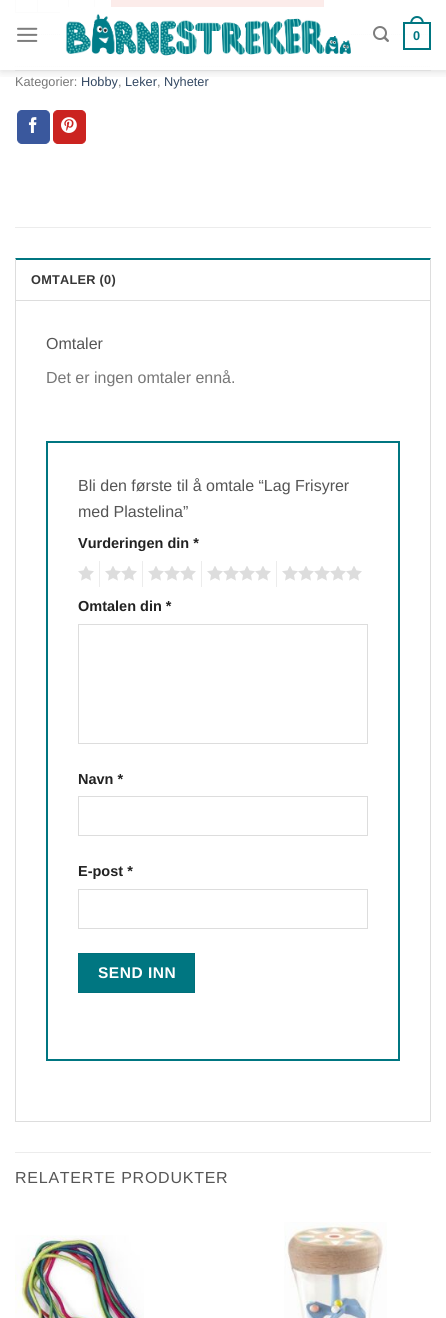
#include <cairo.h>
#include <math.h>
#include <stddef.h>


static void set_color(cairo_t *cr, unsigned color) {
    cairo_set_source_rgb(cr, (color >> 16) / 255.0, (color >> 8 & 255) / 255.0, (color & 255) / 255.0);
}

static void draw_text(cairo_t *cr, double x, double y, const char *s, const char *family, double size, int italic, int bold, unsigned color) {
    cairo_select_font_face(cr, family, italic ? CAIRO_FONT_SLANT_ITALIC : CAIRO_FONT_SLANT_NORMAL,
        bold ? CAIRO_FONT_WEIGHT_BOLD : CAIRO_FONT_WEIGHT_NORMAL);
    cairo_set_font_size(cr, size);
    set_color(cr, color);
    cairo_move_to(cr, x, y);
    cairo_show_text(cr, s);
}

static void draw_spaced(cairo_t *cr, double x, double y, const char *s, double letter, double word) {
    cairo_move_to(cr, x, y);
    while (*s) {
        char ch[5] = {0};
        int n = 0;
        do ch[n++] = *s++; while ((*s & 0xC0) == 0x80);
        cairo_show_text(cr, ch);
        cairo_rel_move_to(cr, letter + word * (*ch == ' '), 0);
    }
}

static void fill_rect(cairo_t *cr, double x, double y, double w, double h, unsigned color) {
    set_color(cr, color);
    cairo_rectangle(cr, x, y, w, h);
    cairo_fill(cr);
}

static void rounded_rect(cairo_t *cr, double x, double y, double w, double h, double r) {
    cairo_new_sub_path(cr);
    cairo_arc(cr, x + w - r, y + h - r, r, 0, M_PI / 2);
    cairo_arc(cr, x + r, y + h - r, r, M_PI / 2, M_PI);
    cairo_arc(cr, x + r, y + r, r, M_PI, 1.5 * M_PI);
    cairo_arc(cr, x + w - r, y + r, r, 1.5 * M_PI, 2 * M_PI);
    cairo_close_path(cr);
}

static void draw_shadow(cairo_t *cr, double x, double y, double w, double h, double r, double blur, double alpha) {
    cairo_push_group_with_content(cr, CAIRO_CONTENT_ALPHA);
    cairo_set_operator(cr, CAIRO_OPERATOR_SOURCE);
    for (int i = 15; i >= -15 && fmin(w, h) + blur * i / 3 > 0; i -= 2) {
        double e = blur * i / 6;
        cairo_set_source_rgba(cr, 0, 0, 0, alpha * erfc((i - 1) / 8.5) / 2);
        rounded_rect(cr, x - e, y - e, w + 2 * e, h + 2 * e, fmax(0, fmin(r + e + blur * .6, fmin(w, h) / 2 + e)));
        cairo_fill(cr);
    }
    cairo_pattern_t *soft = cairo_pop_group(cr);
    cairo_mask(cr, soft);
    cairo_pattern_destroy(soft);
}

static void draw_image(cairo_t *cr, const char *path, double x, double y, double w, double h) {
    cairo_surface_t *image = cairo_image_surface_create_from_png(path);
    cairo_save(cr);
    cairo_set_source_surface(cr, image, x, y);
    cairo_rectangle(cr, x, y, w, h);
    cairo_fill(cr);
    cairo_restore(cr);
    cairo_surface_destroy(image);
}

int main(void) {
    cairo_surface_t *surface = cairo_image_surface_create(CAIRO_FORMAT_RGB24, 446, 1318);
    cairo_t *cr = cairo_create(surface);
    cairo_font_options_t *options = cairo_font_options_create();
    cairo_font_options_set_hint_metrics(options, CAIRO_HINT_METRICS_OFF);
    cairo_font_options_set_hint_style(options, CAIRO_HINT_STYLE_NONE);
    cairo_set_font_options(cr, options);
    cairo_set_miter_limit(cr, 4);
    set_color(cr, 0xFFFFFF);
    cairo_paint(cr);
    fill_rect(cr, 15, 12, 22, 1, 0xFCFCFC);
    fill_rect(cr, 15, 0, 1, 13, 0xFCFCFC);
    cairo_rectangle(cr, 37.5, -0.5, 31, 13);
    cairo_set_line_width(cr, 1);
    cairo_stroke(cr);
    fill_rect(cr, 94, 0, 1, 13, 0xFCFCFC);
    fill_rect(cr, 112, 0, 211, 7, 0xFCECEA);
    cairo_rectangle(cr, 111.5, -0.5, 212, 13);
    set_color(cr, 0xFBEBEA);
    cairo_stroke(cr);
    cairo_new_path(cr);
    cairo_move_to(cr, 15, 34.5);
    cairo_line_to(cr, 431, 34.5);
    set_color(cr, 0xFCFCFC);
    cairo_set_dash(cr, (double[]){1, 1}, 2, 0);
    cairo_stroke(cr);
    cairo_new_path(cr);
    cairo_move_to(cr, 15, 66.5);
    cairo_line_to(cr, 431, 66.5);
    cairo_stroke(cr);
    cairo_save(cr);
    cairo_rectangle(cr, 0, 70, 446, 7);
    cairo_clip(cr);
    set_color(cr, 0x000000);
    draw_shadow(cr, 1, 1, 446, 70, 0, 5, 0.15);
    cairo_restore(cr);
    draw_image(cr, "assets/img1.png", 17, 27, 21, 15);
    draw_image(cr, "assets/img2.png", 60, 7, 291, 49);
    draw_image(cr, "assets/img3.png", 373, 26, 16, 16);
    cairo_rectangle(cr, 404, 23, 26, 26);
    set_color(cr, 0x007681);
    cairo_set_line_width(cr, 2);
    cairo_set_dash(cr, NULL, 0, 0);
    cairo_stroke(cr);
    cairo_set_fill_rule(cr, CAIRO_FILL_RULE_EVEN_ODD);
    cairo_new_path(cr);
    cairo_move_to(cr, 417, 16);
    cairo_curve_to(cr, 421.5, 16, 424, 20, 424, 24);
    cairo_line_to(cr, 410, 24);
    cairo_curve_to(cr, 410, 20, 412.5, 16, 417, 16);
    cairo_close_path(cr);
    cairo_move_to(cr, 417, 18);
    cairo_curve_to(cr, 420.5, 18, 422, 21, 422, 24);
    cairo_line_to(cr, 412, 24);
    cairo_curve_to(cr, 412, 21, 413.5, 18, 417, 18);
    cairo_close_path(cr);
    cairo_fill(cr);
    draw_text(cr, 413, 40, "0", "Liberation Sans", 12.75, 0, 1, 0x007681);
    fill_rect(cr, 15, 70, 416, 1, 0xDFDFDF);
    draw_text(cr, 15, 86, "Kategorier:", "Liberation Sans", 12.75, 0, 0, 0x777777);
    draw_text(cr, 81, 86, "Hobby", "Liberation Sans", 12.75, 0, 0, 0x334862);
    draw_text(cr, 118, 86, ",", "Liberation Sans", 12.75, 0, 0, 0x777777);
    draw_text(cr, 125, 86, "Leker", "Liberation Sans", 12.75, 0, 0, 0x334862);
    draw_text(cr, 157, 86, ",", "Liberation Sans", 12.75, 0, 0, 0x777777);
    draw_text(cr, 164, 86, "Nyheter", "Liberation Sans", 12.75, 0, 0, 0x334862);
    set_color(cr, 0x3A589D);
    rounded_rect(cr, 17.5, 110.5, 32, 33, 4.5);
    cairo_fill_preserve(cr);
    cairo_set_line_width(cr, 1);
    cairo_stroke(cr);
    draw_image(cr, "assets/img4.png", 28, 117, 9, 16);
    set_color(cr, 0xCB2320);
    rounded_rect(cr, 53.5, 110.5, 32, 33, 4.5);
    cairo_fill_preserve(cr);
    cairo_stroke(cr);
    draw_image(cr, "assets/img5.png", 61, 117, 16, 16);
    fill_rect(cr, 15, 227, 416, 1, 0xECECEC);
    set_color(cr, 0x007681);
    cairo_set_fill_rule(cr, CAIRO_FILL_RULE_WINDING);
    cairo_new_path(cr);
    cairo_move_to(cr, 15, 258);
    cairo_line_to(cr, 431, 258);
    cairo_line_to(cr, 430, 260);
    cairo_line_to(cr, 16, 260);
    cairo_close_path(cr);
    cairo_fill(cr);
    set_color(cr, 0xDDDDDD);
    cairo_new_path(cr);
    cairo_move_to(cr, 431, 258);
    cairo_line_to(cr, 431, 300);
    cairo_line_to(cr, 430, 300);
    cairo_line_to(cr, 430, 260);
    cairo_close_path(cr);
    cairo_fill(cr);
    cairo_new_path(cr);
    cairo_move_to(cr, 15, 300);
    cairo_line_to(cr, 15, 258);
    cairo_line_to(cr, 16, 260);
    cairo_line_to(cr, 16, 300);
    cairo_close_path(cr);
    cairo_fill(cr);
    cairo_select_font_face(cr, "Liberation Sans", CAIRO_FONT_SLANT_NORMAL, CAIRO_FONT_WEIGHT_BOLD);
    set_color(cr, 0x363636);
    draw_spaced(cr, 31, 284, "OMTALER (0)", 0.25, 0);
    cairo_rectangle(cr, 15.5, 300.5, 415, 821);
    set_color(cr, 0xDDDDDD);
    cairo_stroke(cr);
    draw_text(cr, 46, 349, "Omtaler", "Liberation Sans", 16, 0, 0, 0x555555);
    draw_text(cr, 46, 383, "Det er ingen omtaler ennå.", "Liberation Sans", 16, 0, 0, 0x777777);
    cairo_rectangle(cr, 47, 442, 352, 618);
    set_color(cr, 0x007681);
    cairo_set_line_width(cr, 2);
    cairo_stroke(cr);
    draw_text(cr, 78, 491, "Bli den første til å omtale “Lag Frisyrer", "Liberation Sans", 16, 0, 0, 0x555555);
    draw_text(cr, 78, 517, "med Plastelina”", "Liberation Sans", 16, 0, 0, 0x555555);
    draw_text(cr, 78, 548, "Vurderingen din *", "Liberation Sans", 14.5, 0, 1, 0x222222);
    draw_image(cr, "assets/img6.png", 78, 566, 16, 15);
    fill_rect(cr, 99, 561, 1, 26, 0xECECEC);
    draw_image(cr, "assets/img7.png", 105, 566, 32, 15);
    fill_rect(cr, 142, 561, 1, 26, 0xECECEC);
    draw_image(cr, "assets/img8.png", 148, 566, 48, 15);
    fill_rect(cr, 201, 561, 1, 26, 0xECECEC);
    draw_image(cr, "assets/img9.png", 207, 566, 64, 15);
    fill_rect(cr, 276, 561, 1, 26, 0xECECEC);
    draw_image(cr, "assets/img10.png", 282, 566, 80, 15);
    draw_text(cr, 78, 611, "Omtalen din *", "Liberation Sans", 14.5, 0, 1, 0x222222);
    cairo_rectangle(cr, 78.5, 624.5, 289, 119);
    set_color(cr, 0xDDDDDD);
    cairo_set_line_width(cr, 1);
    cairo_stroke(cr);
    draw_text(cr, 78, 784, "Navn *", "Liberation Sans", 14.5, 0, 1, 0x222222);
    cairo_rectangle(cr, 78.5, 796.5, 289, 39);
    set_color(cr, 0xDDDDDD);
    cairo_stroke(cr);
    draw_text(cr, 78, 876, "E-post *", "Liberation Sans", 14.5, 0, 1, 0x222222);
    cairo_rectangle(cr, 78.5, 889.5, 289, 39);
    set_color(cr, 0xDDDDDD);
    cairo_stroke(cr);
    set_color(cr, 0x007681);
    cairo_rectangle(cr, 78.5, 953.5, 116, 39);
    cairo_fill_preserve(cr);
    set_color(cr, 0x00707B);
    cairo_stroke(cr);
    cairo_set_font_size(cr, 15.5);
    set_color(cr, 0xFFFFFF);
    draw_spaced(cr, 98, 978, "SEND INN", 0.5, 0);
    fill_rect(cr, 15, 1152, 416, 1, 0xECECEC);
    cairo_select_font_face(cr, "Liberation Sans", CAIRO_FONT_SLANT_NORMAL, CAIRO_FONT_WEIGHT_NORMAL);
    cairo_set_font_size(cr, 16);
    set_color(cr, 0x555555);
    draw_spaced(cr, 15, 1183, "RELATERTE PRODUKTER", 0.75, 0);
    draw_image(cr, "assets/img11.png", 15, 1235, 129, 83);
    draw_image(cr, "assets/img12.png", 284, 1222, 103, 96);
    cairo_surface_write_to_png(surface, "output.png");
    cairo_font_options_destroy(options);
    cairo_destroy(cr);
    cairo_surface_destroy(surface);
    return 0;
}
